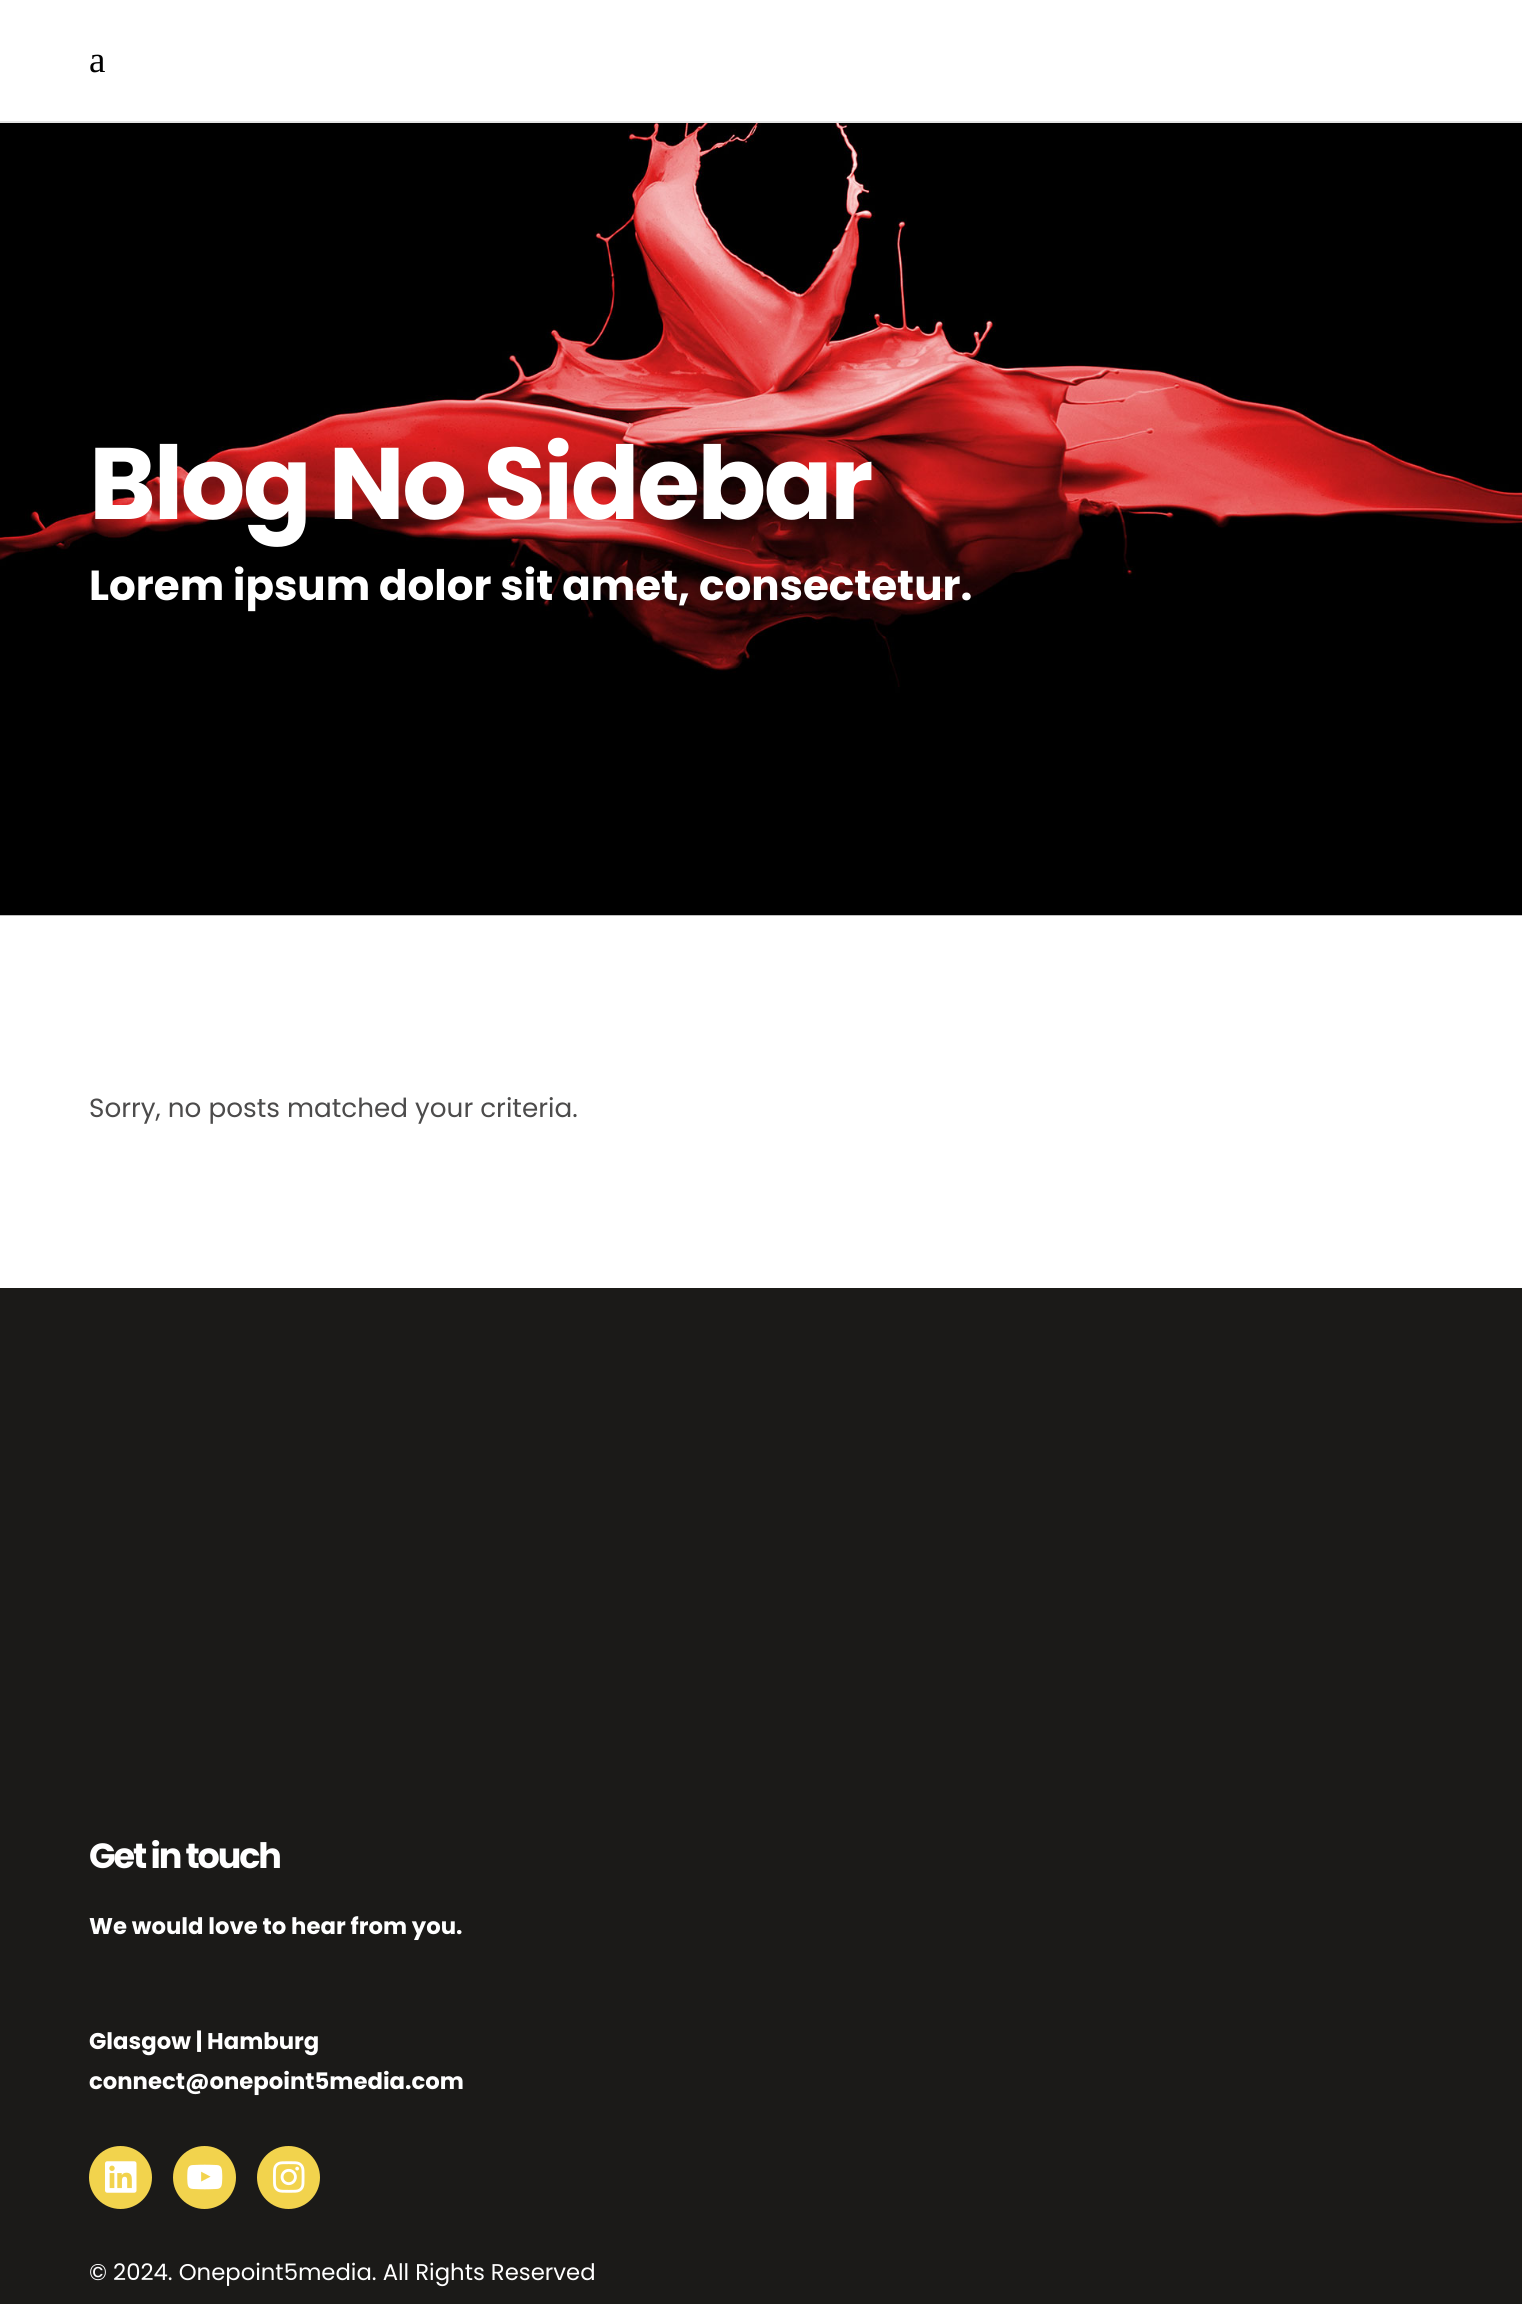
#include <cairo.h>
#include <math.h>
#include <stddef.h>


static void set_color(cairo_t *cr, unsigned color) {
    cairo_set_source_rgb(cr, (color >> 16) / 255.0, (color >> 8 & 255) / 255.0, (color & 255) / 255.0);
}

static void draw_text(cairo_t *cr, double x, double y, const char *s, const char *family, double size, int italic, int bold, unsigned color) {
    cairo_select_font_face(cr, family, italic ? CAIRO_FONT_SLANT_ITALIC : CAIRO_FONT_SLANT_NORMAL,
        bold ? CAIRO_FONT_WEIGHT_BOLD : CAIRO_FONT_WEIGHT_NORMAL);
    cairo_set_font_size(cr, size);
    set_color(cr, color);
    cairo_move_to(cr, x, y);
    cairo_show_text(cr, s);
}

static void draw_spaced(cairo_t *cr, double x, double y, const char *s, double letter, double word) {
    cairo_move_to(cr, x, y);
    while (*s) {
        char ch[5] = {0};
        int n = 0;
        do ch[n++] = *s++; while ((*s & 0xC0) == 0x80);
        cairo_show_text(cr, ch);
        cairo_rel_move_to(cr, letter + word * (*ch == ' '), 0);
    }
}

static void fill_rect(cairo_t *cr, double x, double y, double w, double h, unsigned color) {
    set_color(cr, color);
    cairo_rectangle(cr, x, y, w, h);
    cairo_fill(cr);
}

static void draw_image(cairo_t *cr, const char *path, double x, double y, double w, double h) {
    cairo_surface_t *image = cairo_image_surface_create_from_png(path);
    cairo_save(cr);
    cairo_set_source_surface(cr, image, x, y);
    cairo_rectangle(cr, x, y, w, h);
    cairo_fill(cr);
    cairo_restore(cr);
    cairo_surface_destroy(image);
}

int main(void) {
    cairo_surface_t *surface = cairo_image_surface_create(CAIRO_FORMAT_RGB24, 1522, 2304);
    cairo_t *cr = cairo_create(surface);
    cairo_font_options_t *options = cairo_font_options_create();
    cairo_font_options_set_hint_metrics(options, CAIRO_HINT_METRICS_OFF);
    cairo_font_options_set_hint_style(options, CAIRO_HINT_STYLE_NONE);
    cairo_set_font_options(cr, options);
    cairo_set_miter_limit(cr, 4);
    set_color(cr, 0xFFFFFF);
    cairo_paint(cr);
    fill_rect(cr, 0, 121, 1522, 2, 0xE5E5E5);
    draw_text(cr, 89, 72, "a", "Liberation Serif", 37, 0, 0, 0x000000);
    draw_image(cr, "assets/img1.png", 0, 123, 1522, 793);
    cairo_select_font_face(cr, "Poppins", CAIRO_FONT_SLANT_NORMAL, CAIRO_FONT_WEIGHT_BOLD);
    cairo_set_font_size(cr, 101.5);
    set_color(cr, 0xFFFFFF);
    draw_spaced(cr, 89, 519, "Blog No Sidebar", -2.5, 0);
    draw_text(cr, 89, 600, "Lorem ipsum dolor sit amet, consectetur.", "Poppins", 42, 0, 1, 0xFFFFFF);
    draw_text(cr, 89, 1117, "Sorry, no posts matched your criteria.", "Poppins", 26.25, 0, 0, 0x4C4B4B);
    fill_rect(cr, 0, 1288, 1522, 1016, 0x1B1A18);
    cairo_select_font_face(cr, "Poppins", CAIRO_FONT_SLANT_NORMAL, CAIRO_FONT_WEIGHT_BOLD);
    cairo_set_font_size(cr, 35);
    set_color(cr, 0xFFFFFF);
    draw_spaced(cr, 89, 1868, "Get in touch", -2.1, 0);
    draw_text(cr, 89, 1934, "We would love to hear from you.", "Poppins", 22.75, 0, 1, 0xFFFFFF);
    draw_text(cr, 89, 2049, "Glasgow | Hamburg", "Poppins", 22.75, 0, 1, 0xFFFFFF);
    draw_text(cr, 89, 2089, "connect@onepoint5media.com", "Poppins", 22.75, 0, 1, 0xFFFFFF);
    set_color(cr, 0xF2D34D);
    cairo_new_path(cr);
    cairo_arc(cr, 120.5, 2177.5, 31.5, 0, 2 * M_PI);
    cairo_fill(cr);
    draw_image(cr, "assets/img2.png", 105, 2161, 32, 32);
    cairo_arc(cr, 204.5, 2177.5, 31.5, 0, 2 * M_PI);
    cairo_fill(cr);
    draw_image(cr, "assets/img3.png", 187, 2164, 36, 26);
    cairo_arc(cr, 288.5, 2177.5, 31.5, 0, 2 * M_PI);
    cairo_fill(cr);
    draw_image(cr, "assets/img4.png", 273, 2161, 32, 32);
    draw_text(cr, 89, 2280, "© 2024. Onepoint5media. All Rights Reserved", "Poppins", 22.75, 0, 0, 0xFFFFFF);
    cairo_surface_write_to_png(surface, "output.png");
    cairo_font_options_destroy(options);
    cairo_destroy(cr);
    cairo_surface_destroy(surface);
    return 0;
}
